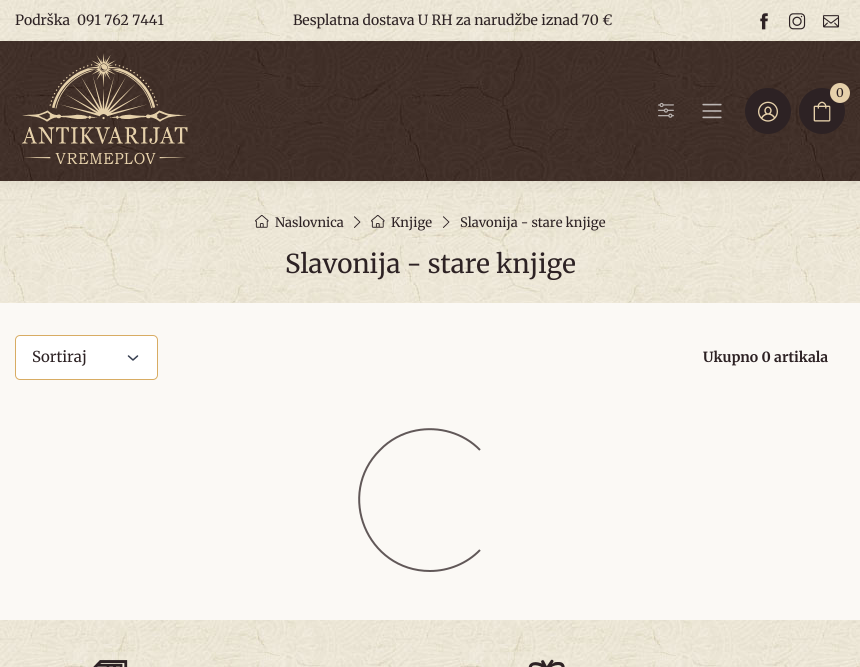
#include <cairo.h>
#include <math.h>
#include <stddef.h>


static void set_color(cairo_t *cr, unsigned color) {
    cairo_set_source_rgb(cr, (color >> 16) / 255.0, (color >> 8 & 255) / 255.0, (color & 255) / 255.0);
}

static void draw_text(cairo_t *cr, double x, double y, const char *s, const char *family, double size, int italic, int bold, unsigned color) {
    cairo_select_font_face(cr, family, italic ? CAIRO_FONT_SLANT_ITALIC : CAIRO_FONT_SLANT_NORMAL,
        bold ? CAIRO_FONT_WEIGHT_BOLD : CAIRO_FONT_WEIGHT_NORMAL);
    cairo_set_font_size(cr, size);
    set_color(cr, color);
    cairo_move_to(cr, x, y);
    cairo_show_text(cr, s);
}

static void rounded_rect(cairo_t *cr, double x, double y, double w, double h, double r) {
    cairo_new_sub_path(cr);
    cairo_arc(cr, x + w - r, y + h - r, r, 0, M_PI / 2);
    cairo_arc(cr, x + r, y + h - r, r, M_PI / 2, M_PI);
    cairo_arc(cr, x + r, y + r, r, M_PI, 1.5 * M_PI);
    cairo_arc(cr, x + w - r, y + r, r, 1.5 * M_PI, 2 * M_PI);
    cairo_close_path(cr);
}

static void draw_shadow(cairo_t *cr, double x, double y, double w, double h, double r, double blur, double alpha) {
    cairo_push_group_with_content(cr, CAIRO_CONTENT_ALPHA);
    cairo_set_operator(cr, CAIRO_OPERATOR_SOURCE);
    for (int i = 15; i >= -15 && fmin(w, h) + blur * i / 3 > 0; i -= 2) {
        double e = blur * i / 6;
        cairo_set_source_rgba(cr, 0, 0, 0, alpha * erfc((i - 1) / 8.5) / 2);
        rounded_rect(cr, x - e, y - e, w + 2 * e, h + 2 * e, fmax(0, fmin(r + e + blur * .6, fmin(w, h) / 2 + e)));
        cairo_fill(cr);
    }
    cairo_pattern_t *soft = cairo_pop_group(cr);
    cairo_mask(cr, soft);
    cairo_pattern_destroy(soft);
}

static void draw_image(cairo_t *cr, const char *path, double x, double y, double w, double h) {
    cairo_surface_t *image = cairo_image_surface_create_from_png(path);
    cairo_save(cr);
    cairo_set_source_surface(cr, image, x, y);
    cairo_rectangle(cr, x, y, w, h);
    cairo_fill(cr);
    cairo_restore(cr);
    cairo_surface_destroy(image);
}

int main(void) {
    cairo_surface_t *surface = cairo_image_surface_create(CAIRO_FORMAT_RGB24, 860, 667);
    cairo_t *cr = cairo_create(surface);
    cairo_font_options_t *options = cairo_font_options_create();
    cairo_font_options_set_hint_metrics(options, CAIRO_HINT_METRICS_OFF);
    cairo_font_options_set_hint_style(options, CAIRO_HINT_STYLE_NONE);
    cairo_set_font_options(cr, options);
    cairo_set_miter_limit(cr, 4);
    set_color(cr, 0xFBF9F5);
    cairo_paint(cr);
    draw_image(cr, "assets/img1.png", 0, 0, 860, 41);
    draw_text(cr, 15, 25, "Podrška", "Merriweather", 14, 0, 0, 0x2D2224);
    draw_text(cr, 77, 25, "091 762 7441", "Merriweather", 14, 0, 0, 0x2D2224);
    draw_text(cr, 293, 25, "Besplatna dostava U RH za narudžbe iznad 70 €", "Merriweather", 14, 0, 0, 0x2D2224);
    draw_image(cr, "assets/img2.png", 760, 13, 8, 17);
    draw_image(cr, "assets/img3.png", 789, 13, 17, 17);
    draw_image(cr, "assets/img4.png", 823, 15, 17, 13);
    draw_image(cr, "assets/img11.png", 0, 181, 860, 122);
    set_color(cr, 0x000000);
    draw_shadow(cr, 1, 46, 858, 138, 0, 6, 0.06);
    draw_image(cr, "assets/img5.png", 0, 41, 860, 140);
    draw_image(cr, "assets/img6.png", 22, 53, 166, 112);
    set_color(cr, 0x2D2224);
    cairo_arc(cr, 768, 111, 23, 0, 2 * M_PI);
    cairo_fill(cr);
    draw_image(cr, "assets/img7.png", 758, 101, 20, 21);
    cairo_arc(cr, 822, 111, 23, 0, 2 * M_PI);
    cairo_fill(cr);
    draw_image(cr, "assets/img8.png", 813, 101, 18, 21);
    set_color(cr, 0xE6D1AB);
    cairo_arc(cr, 840, 93, 10, 0, 2 * M_PI);
    cairo_fill(cr);
    draw_text(cr, 836, 97, "0", "Merriweather", 12, 0, 0, 0x2D2224);
    draw_image(cr, "assets/img9.png", 658, 102, 16, 16);
    draw_image(cr, "assets/img10.png", 702, 103, 20, 16);
    draw_image(cr, "assets/img12.png", 255, 214, 14, 14);
    draw_text(cr, 275, 227, "Naslovnica", "Merriweather", 13, 0, 0, 0x2D2224);
    draw_image(cr, "assets/img13.png", 354, 216, 7, 12);
    draw_image(cr, "assets/img14.png", 371, 214, 14, 14);
    draw_text(cr, 391, 227, "Knjige", "Merriweather", 13, 0, 0, 0x2D2224);
    draw_image(cr, "assets/img15.png", 443, 216, 7, 12);
    draw_text(cr, 460, 227, "Slavonija - stare knjige", "Merriweather", 13, 0, 0, 0x2D2224);
    draw_text(cr, 285, 273, "Slavonija - stare knjige", "Merriweather", 26, 0, 0, 0x2D2224);
    set_color(cr, 0xFFFFFF);
    rounded_rect(cr, 15, 335, 143, 45, 5);
    cairo_fill(cr);
    cairo_new_path(cr);
    cairo_move_to(cr, 128.5, 356);
    cairo_line_to(cr, 133, 360);
    cairo_line_to(cr, 137.5, 356);
    set_color(cr, 0x373F50);
    cairo_set_line_width(cr, 1.5);
    cairo_set_line_cap(cr, CAIRO_LINE_CAP_ROUND);
    cairo_set_line_join(cr, CAIRO_LINE_JOIN_ROUND);
    cairo_stroke(cr);
    rounded_rect(cr, 15.5, 335.5, 142, 44, 4.5);
    set_color(cr, 0xD8AC63);
    cairo_set_line_width(cr, 1);
    cairo_set_line_cap(cr, CAIRO_LINE_CAP_BUTT);
    cairo_set_line_join(cr, CAIRO_LINE_JOIN_MITER);
    cairo_stroke(cr);
    draw_text(cr, 32, 362, "Sortiraj", "Merriweather", 15, 0, 0, 0x2D2224);
    draw_text(cr, 703, 362, "Ukupno 0 artikala", "Merriweather", 14, 0, 1, 0x2D2224);
    cairo_new_path(cr);
    cairo_move_to(cr, 480, 550);
    cairo_curve_to(cr, 467, 563.5, 448.5, 571, 430, 571);
    cairo_curve_to(cr, 367, 571, 335.5, 494, 380, 450);
    cairo_curve_to(cr, 389.5, 440, 402.5, 433, 416, 430.5);
    cairo_curve_to(cr, 439, 426, 463.5, 433, 480, 450);
    set_color(cr, 0x615858);
    cairo_set_line_width(cr, 2);
    cairo_stroke(cr);
    draw_image(cr, "assets/img16.png", 0, 620, 860, 47);
    draw_image(cr, "assets/img17.png", 93, 660, 35, 7);
    draw_image(cr, "assets/img18.png", 528, 659, 37, 8);
    cairo_surface_write_to_png(surface, "output.png");
    cairo_font_options_destroy(options);
    cairo_destroy(cr);
    cairo_surface_destroy(surface);
    return 0;
}
